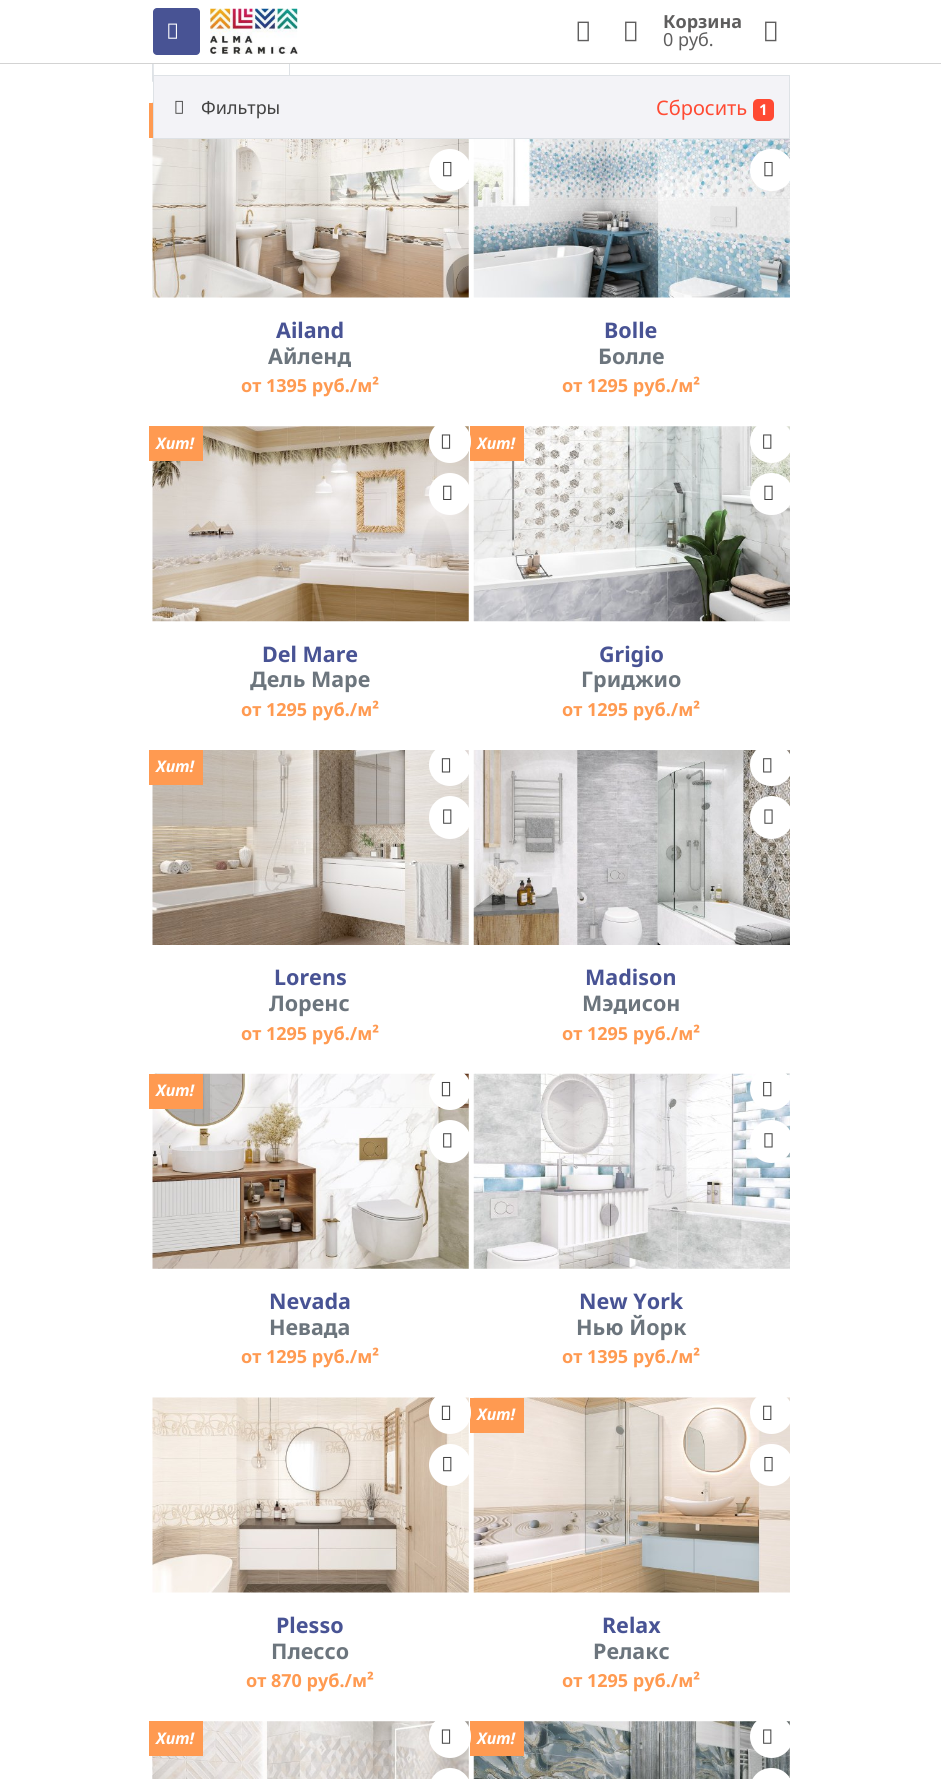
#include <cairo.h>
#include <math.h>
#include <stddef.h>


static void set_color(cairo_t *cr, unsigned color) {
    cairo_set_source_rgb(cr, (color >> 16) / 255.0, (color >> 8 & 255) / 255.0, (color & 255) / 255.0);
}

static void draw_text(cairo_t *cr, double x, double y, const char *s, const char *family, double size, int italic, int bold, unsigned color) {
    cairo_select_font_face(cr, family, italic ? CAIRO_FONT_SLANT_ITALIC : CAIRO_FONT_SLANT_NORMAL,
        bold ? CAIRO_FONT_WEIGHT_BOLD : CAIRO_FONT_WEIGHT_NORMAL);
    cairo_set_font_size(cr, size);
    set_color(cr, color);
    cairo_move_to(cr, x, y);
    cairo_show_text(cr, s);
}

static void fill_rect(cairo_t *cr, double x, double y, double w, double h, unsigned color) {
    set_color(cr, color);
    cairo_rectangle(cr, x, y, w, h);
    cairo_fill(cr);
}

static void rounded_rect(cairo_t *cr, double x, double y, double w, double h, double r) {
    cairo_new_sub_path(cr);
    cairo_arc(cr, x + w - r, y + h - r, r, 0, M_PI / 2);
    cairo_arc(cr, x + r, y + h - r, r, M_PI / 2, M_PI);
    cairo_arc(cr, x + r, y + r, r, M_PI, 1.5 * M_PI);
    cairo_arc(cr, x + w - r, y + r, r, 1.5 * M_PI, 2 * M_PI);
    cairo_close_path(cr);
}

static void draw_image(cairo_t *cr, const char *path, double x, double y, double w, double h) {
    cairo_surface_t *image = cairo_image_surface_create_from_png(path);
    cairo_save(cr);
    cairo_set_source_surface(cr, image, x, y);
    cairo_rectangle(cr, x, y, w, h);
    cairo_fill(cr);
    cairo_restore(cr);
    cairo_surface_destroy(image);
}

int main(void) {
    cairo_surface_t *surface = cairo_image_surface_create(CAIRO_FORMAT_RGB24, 941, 1779);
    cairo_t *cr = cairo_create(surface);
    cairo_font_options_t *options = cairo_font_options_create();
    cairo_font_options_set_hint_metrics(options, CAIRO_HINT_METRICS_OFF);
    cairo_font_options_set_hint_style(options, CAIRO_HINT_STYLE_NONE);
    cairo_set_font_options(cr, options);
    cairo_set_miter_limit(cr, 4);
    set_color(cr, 0xFFFFFF);
    cairo_paint(cr);
    set_color(cr, 0xDEE2E6);
    cairo_new_path(cr);
    cairo_move_to(cr, 288, 40);
    cairo_curve_to(cr, 289, 41, 290, 42, 290, 44);
    cairo_line_to(cr, 290, 82);
    cairo_line_to(cr, 288, 81);
    cairo_line_to(cr, 289, 81);
    cairo_line_to(cr, 289, 44);
    cairo_curve_to(cr, 289, 43, 288, 42, 288, 41);
    cairo_close_path(cr);
    cairo_fill(cr);
    cairo_new_path(cr);
    cairo_move_to(cr, 152, 42);
    cairo_line_to(cr, 154, 40);
    cairo_line_to(cr, 155, 41);
    cairo_curve_to(cr, 153, 44, 154, 76, 154, 81);
    cairo_line_to(cr, 152, 82);
    cairo_close_path(cr);
    cairo_fill(cr);
    fill_rect(cr, 152, 40, 138, 23, 0xFFFFFF);
    fill_rect(cr, 0, 63, 941, 1, 0xD3D3D3);
    set_color(cr, 0x485394);
    rounded_rect(cr, 153, 8, 47, 47, 4);
    cairo_fill(cr);
    draw_image(cr, "assets/img1.png", 168, 23, 9, 16);
    draw_image(cr, "assets/img2.png", 210, 8, 88, 46);
    draw_image(cr, "assets/img3.png", 577, 21, 12, 21);
    draw_image(cr, "assets/img4.png", 625, 21, 12, 21);
    draw_text(cr, 663, 28, "Корзина", "Noto Sans", 18, 0, 1, 0x5F5E5E);
    draw_text(cr, 663, 46, "0 руб.", "Noto Sans", 18, 0, 0, 0x5F5E5E);
    draw_image(cr, "assets/img4.png", 765, 21, 12, 21);
    draw_image(cr, "assets/img7.png", 152, 102, 317, 196);
    set_color(cr, 0xF3F3F7);
    cairo_rectangle(cr, 153.5, 75.5, 636, 63);
    cairo_fill_preserve(cr);
    set_color(cr, 0xDEE2E6);
    cairo_set_line_width(cr, 1);
    cairo_stroke(cr);
    draw_image(cr, "assets/img5.png", 175, 100, 8, 14);
    draw_text(cr, 201, 114, "Фильтры", "Noto Sans", 18, 0, 0, 0x424242);
    draw_text(cr, 656, 115, "Сбросить", "Noto Sans", 20, 0, 0, 0xFF4A33);
    rounded_rect(cr, 753, 99, 21, 22, 5);
    cairo_fill(cr);
    draw_text(cr, 759, 115, "1", "Noto Sans", 15, 0, 1, 0xFFFFFF);
    cairo_new_path(cr);
    cairo_arc(cr, 450, 170, 21, 0, 2 * M_PI);
    cairo_fill(cr);
    draw_image(cr, "assets/img6.png", 443, 161, 9, 16);
    fill_rect(cr, 149, 103, 4, 35, 0xFF9A51);
    draw_text(cr, 276, 338, "Ailand", "Noto Sans", 21.5, 0, 1, 0x485394);
    draw_text(cr, 268, 364, "Айленд", "Noto Sans", 21.5, 0, 1, 0x6C757D);
    draw_text(cr, 241, 392, "от 1395 руб./м²", "Noto Sans", 18, 0, 1, 0xFF9A51);
    draw_image(cr, "assets/img9.png", 473, 139, 317, 159);
    set_color(cr, 0xFFFFFF);
    rounded_rect(cr, 750, 149, 43, 42, 21);
    cairo_fill(cr);
    draw_image(cr, "assets/img8.png", 764, 161, 9, 16);
    draw_text(cr, 604, 338, "Bolle", "Noto Sans", 21.5, 0, 1, 0x485394);
    draw_text(cr, 598, 364, "Болле", "Noto Sans", 21.5, 0, 1, 0x6C757D);
    draw_text(cr, 562, 392, "от 1295 руб./м²", "Noto Sans", 18, 0, 1, 0xFF9A51);
    draw_image(cr, "assets/img10.png", 152, 426, 317, 196);
    fill_rect(cr, 149, 426, 54, 35, 0xFF9A51);
    draw_text(cr, 156, 449, "Хит!", "Noto Sans", 16, 1, 1, 0xFFFFFF);
    draw_text(cr, 262, 662, "Del Mare", "Noto Sans", 21.5, 0, 1, 0x485394);
    draw_text(cr, 250, 687, "Дель Маре", "Noto Sans", 21.5, 0, 1, 0x6C757D);
    draw_text(cr, 241, 716, "от 1295 руб./м²", "Noto Sans", 18, 0, 1, 0xFF9A51);
    draw_image(cr, "assets/img13.png", 473, 426, 317, 196);
    fill_rect(cr, 470, 426, 54, 35, 0xFF9A51);
    set_color(cr, 0xFFFFFF);
    rounded_rect(cr, 429, 420, 42, 43, 21);
    cairo_fill(cr);
    draw_image(cr, "assets/img11.png", 441, 434, 10, 15);
    cairo_arc(cr, 450, 494, 21, 0, 2 * M_PI);
    cairo_fill(cr);
    draw_image(cr, "assets/img12.png", 443, 485, 9, 15);
    draw_text(cr, 477, 449, "Хит!", "Noto Sans", 16, 1, 1, 0xFFFFFF);
    draw_text(cr, 599, 662, "Grigio", "Noto Sans", 21.5, 0, 1, 0x485394);
    draw_text(cr, 581, 687, "Гриджио", "Noto Sans", 21.5, 0, 1, 0x6C757D);
    draw_text(cr, 562, 716, "от 1295 руб./м²", "Noto Sans", 18, 0, 1, 0xFF9A51);
    set_color(cr, 0xFFFFFF);
    cairo_new_path(cr);
    cairo_arc(cr, 771.5, 441.5, 21.5, 0, 2 * M_PI);
    cairo_fill(cr);
    draw_image(cr, "assets/img14.png", 763, 434, 9, 15);
    rounded_rect(cr, 750, 473, 43, 42, 21);
    cairo_fill(cr);
    draw_image(cr, "assets/img15.png", 764, 485, 9, 15);
    draw_image(cr, "assets/img16.png", 152, 750, 317, 195);
    fill_rect(cr, 149, 750, 54, 35, 0xFF9A51);
    draw_text(cr, 156, 772, "Хит!", "Noto Sans", 16, 1, 1, 0xFFFFFF);
    draw_text(cr, 274, 985, "Lorens", "Noto Sans", 21.5, 0, 1, 0x485394);
    draw_text(cr, 269, 1011, "Лоренс", "Noto Sans", 21.5, 0, 1, 0x6C757D);
    draw_text(cr, 241, 1040, "от 1295 руб./м²", "Noto Sans", 18, 0, 1, 0xFF9A51);
    set_color(cr, 0xFFFFFF);
    cairo_new_path(cr);
    cairo_arc(cr, 450, 765, 21, 0, 2 * M_PI);
    cairo_fill(cr);
    draw_image(cr, "assets/img17.png", 441, 758, 10, 15);
    rounded_rect(cr, 429, 796, 42, 43, 21);
    cairo_fill(cr);
    draw_image(cr, "assets/img14.png", 443, 809, 9, 15);
    draw_image(cr, "assets/img20.png", 473, 750, 317, 195);
    rounded_rect(cr, 750, 744, 43, 42, 21);
    cairo_fill(cr);
    draw_image(cr, "assets/img18.png", 763, 758, 9, 15);
    cairo_arc(cr, 771.5, 817.5, 21.5, 0, 2 * M_PI);
    cairo_fill(cr);
    draw_image(cr, "assets/img19.png", 764, 809, 9, 15);
    draw_text(cr, 585, 985, "Madison", "Noto Sans", 21.5, 0, 1, 0x485394);
    draw_text(cr, 582, 1011, "Мэдисон", "Noto Sans", 21.5, 0, 1, 0x6C757D);
    draw_text(cr, 562, 1040, "от 1295 руб./м²", "Noto Sans", 18, 0, 1, 0xFF9A51);
    draw_image(cr, "assets/img21.png", 152, 1073, 317, 196);
    fill_rect(cr, 149, 1074, 54, 35, 0xFF9A51);
    draw_text(cr, 156, 1096, "Хит!", "Noto Sans", 16, 1, 1, 0xFFFFFF);
    draw_text(cr, 269, 1309, "Nevada", "Noto Sans", 21.5, 0, 1, 0x485394);
    draw_text(cr, 269, 1335, "Невада", "Noto Sans", 21.5, 0, 1, 0x6C757D);
    draw_text(cr, 241, 1363, "от 1295 руб./м²", "Noto Sans", 18, 0, 1, 0xFF9A51);
    set_color(cr, 0xFFFFFF);
    cairo_new_path(cr);
    cairo_arc(cr, 450, 1089, 21, 0, 2 * M_PI);
    cairo_fill(cr);
    draw_image(cr, "assets/img22.png", 441, 1081, 10, 16);
    rounded_rect(cr, 429, 1120, 42, 43, 21);
    cairo_fill(cr);
    draw_image(cr, "assets/img18.png", 443, 1133, 9, 15);
    draw_image(cr, "assets/img24.png", 473, 1073, 317, 196);
    rounded_rect(cr, 750, 1068, 43, 42, 21);
    cairo_fill(cr);
    draw_image(cr, "assets/img6.png", 763, 1081, 9, 16);
    cairo_arc(cr, 771.5, 1141.5, 21.5, 0, 2 * M_PI);
    cairo_fill(cr);
    draw_image(cr, "assets/img23.png", 764, 1133, 9, 15);
    draw_text(cr, 579, 1309, "New York", "Noto Sans", 21.5, 0, 1, 0x485394);
    draw_text(cr, 576, 1335, "Нью Йорк", "Noto Sans", 21.5, 0, 1, 0x6C757D);
    draw_text(cr, 562, 1363, "от 1395 руб./м²", "Noto Sans", 18, 0, 1, 0xFF9A51);
    draw_image(cr, "assets/img26.png", 152, 1397, 317, 196);
    draw_image(cr, "assets/img27.png", 473, 1397, 317, 196);
    fill_rect(cr, 470, 1398, 54, 35, 0xFF9A51);
    set_color(cr, 0xFFFFFF);
    rounded_rect(cr, 429, 1391, 42, 43, 21);
    cairo_fill(cr);
    draw_image(cr, "assets/img25.png", 441, 1405, 10, 15);
    cairo_arc(cr, 450, 1465, 21, 0, 2 * M_PI);
    cairo_fill(cr);
    draw_image(cr, "assets/img6.png", 443, 1456, 9, 16);
    draw_text(cr, 276, 1633, "Plesso", "Noto Sans", 21.5, 0, 1, 0x485394);
    draw_text(cr, 271, 1659, "Плессо", "Noto Sans", 21.5, 0, 1, 0x6C757D);
    draw_text(cr, 246, 1687, "от 870 руб./м²", "Noto Sans", 18, 0, 1, 0xFF9A51);
    draw_text(cr, 477, 1420, "Хит!", "Noto Sans", 16, 1, 1, 0xFFFFFF);
    draw_text(cr, 602, 1633, "Relax", "Noto Sans", 21.5, 0, 1, 0x485394);
    draw_text(cr, 593, 1659, "Релакс", "Noto Sans", 21.5, 0, 1, 0x6C757D);
    draw_text(cr, 562, 1687, "от 1295 руб./м²", "Noto Sans", 18, 0, 1, 0xFF9A51);
    set_color(cr, 0xFFFFFF);
    cairo_new_path(cr);
    cairo_arc(cr, 771.5, 1412.5, 21.5, 0, 2 * M_PI);
    cairo_fill(cr);
    draw_image(cr, "assets/img12.png", 763, 1405, 9, 15);
    rounded_rect(cr, 750, 1444, 43, 42, 21);
    cairo_fill(cr);
    draw_image(cr, "assets/img8.png", 764, 1456, 9, 16);
    draw_image(cr, "assets/img28.png", 152, 1721, 317, 58);
    fill_rect(cr, 149, 1721, 54, 35, 0xFF9A51);
    draw_text(cr, 156, 1744, "Хит!", "Noto Sans", 16, 1, 1, 0xFFFFFF);
    draw_image(cr, "assets/img29.png", 473, 1721, 317, 58);
    fill_rect(cr, 470, 1721, 54, 35, 0xFF9A51);
    set_color(cr, 0xFFFFFF);
    rounded_rect(cr, 429, 1715, 42, 43, 21);
    cairo_fill(cr);
    draw_image(cr, "assets/img11.png", 441, 1729, 10, 15);
    rounded_rect(cr, 429, 1768, 42, 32, 21);
    cairo_fill(cr);
    draw_text(cr, 477, 1744, "Хит!", "Noto Sans", 16, 1, 1, 0xFFFFFF);
    cairo_new_path(cr);
    cairo_arc(cr, 771.5, 1736.5, 21.5, 0, 2 * M_PI);
    cairo_fill(cr);
    draw_image(cr, "assets/img14.png", 763, 1729, 9, 15);
    rounded_rect(cr, 750, 1768, 43, 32, 21);
    cairo_fill(cr);
    cairo_surface_write_to_png(surface, "output.png");
    cairo_font_options_destroy(options);
    cairo_destroy(cr);
    cairo_surface_destroy(surface);
    return 0;
}
